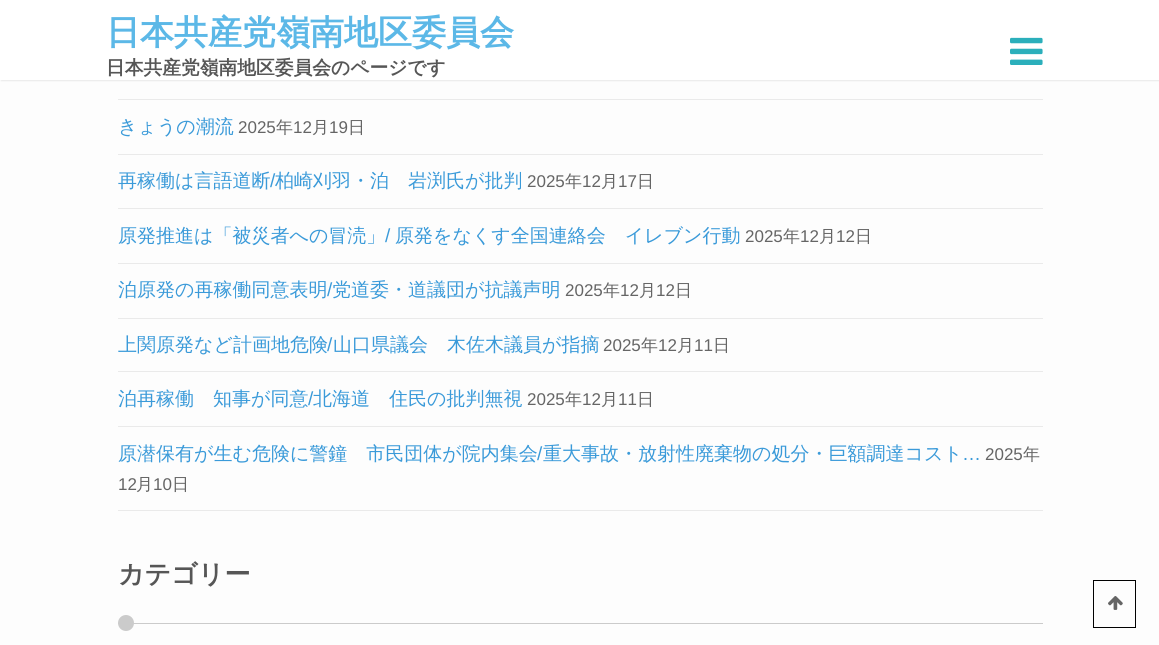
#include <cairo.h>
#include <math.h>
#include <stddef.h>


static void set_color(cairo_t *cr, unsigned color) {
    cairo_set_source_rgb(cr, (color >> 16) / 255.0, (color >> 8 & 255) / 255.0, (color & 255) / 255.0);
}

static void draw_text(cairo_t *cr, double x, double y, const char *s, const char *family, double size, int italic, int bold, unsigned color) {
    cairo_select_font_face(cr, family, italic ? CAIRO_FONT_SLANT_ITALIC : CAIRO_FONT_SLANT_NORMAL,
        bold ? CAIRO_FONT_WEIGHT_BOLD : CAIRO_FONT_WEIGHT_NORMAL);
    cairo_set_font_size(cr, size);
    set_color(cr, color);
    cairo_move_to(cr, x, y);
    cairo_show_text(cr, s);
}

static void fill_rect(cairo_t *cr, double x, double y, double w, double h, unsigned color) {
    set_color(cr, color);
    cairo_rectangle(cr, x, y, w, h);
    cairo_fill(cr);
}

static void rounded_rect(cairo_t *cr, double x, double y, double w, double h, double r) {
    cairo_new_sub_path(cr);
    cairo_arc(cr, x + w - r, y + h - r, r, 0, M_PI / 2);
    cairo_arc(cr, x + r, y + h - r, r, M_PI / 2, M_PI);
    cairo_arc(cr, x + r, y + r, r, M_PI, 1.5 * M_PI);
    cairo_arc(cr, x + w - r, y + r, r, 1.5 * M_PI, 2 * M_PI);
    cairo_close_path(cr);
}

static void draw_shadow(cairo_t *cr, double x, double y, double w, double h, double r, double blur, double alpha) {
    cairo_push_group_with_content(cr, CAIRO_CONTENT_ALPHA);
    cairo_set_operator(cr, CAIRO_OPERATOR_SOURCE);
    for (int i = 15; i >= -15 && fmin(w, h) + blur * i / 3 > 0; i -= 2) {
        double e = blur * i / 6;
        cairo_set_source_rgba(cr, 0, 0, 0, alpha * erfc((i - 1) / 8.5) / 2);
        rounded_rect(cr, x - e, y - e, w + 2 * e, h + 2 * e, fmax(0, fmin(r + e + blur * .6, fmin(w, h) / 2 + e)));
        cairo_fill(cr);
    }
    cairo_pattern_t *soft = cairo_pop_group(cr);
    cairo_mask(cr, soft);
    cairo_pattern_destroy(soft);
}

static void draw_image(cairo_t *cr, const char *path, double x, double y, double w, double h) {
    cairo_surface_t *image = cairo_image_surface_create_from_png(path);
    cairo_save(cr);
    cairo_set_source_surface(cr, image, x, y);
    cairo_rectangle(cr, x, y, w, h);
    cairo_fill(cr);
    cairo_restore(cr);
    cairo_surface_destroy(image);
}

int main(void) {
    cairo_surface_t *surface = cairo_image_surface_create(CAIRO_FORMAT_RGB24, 1159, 645);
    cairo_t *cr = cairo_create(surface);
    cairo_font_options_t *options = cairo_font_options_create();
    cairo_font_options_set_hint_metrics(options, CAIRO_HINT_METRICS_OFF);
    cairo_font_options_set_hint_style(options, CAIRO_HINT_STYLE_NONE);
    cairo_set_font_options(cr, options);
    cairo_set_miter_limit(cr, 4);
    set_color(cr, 0xFDFDFD);
    cairo_paint(cr);
    set_color(cr, 0xEAEAEA);
    draw_shadow(cr, 1, 1, 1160, 80, 0, 0.5, 1);
    fill_rect(cr, 0, 0, 1159, 80, 0xFFFFFF);
    draw_text(cr, 106, 44, "日本共産党嶺南地区委員会", "WenQuanYi Zen Hei", 34, 0, 1, 0x5CB8E7);
    draw_text(cr, 106, 74, "日本共産党嶺南地区委員会のページです", "WenQuanYi Zen Hei", 18.75, 0, 1, 0x565656);
    draw_image(cr, "assets/img1.png", 1010, 37, 33, 28);
    fill_rect(cr, 118, 99, 925, 1, 0xEAEAEA);
    fill_rect(cr, 118, 154, 925, 1, 0xEAEAEA);
    draw_text(cr, 118, 133, "きょうの潮流", "WenQuanYi Zen Hei Medium", 19, 0, 0, 0x3A9AD9);
    draw_text(cr, 238, 133, "2025", "Liberation Sans", 17, 0, 0, 0x656565);
    draw_text(cr, 276, 133, "年", "WenQuanYi Zen Hei Medium", 17, 0, 0, 0x656565);
    draw_text(cr, 293, 133, "12", "Liberation Sans", 17, 0, 0, 0x656565);
    draw_text(cr, 312, 133, "月", "WenQuanYi Zen Hei Medium", 17, 0, 0, 0x656565);
    draw_text(cr, 329, 133, "19", "Liberation Sans", 17, 0, 0, 0x656565);
    draw_text(cr, 348, 133, "日", "WenQuanYi Zen Hei Medium", 17, 0, 0, 0x656565);
    fill_rect(cr, 118, 208, 925, 1, 0xEAEAEA);
    draw_text(cr, 118, 187, "再稼働は言語道断", "WenQuanYi Zen Hei Medium", 19, 0, 0, 0x3A9AD9);
    draw_text(cr, 270, 187, "/", "Liberation Sans", 19, 0, 0, 0x3A9AD9);
    draw_text(cr, 275, 187, "柏崎刈羽・泊　岩渕氏が批判", "WenQuanYi Zen Hei Medium", 19, 0, 0, 0x3A9AD9);
    draw_text(cr, 527, 187, "2025", "Liberation Sans", 17, 0, 0, 0x656565);
    draw_text(cr, 565, 187, "年", "WenQuanYi Zen Hei Medium", 17, 0, 0, 0x656565);
    draw_text(cr, 582, 187, "12", "Liberation Sans", 17, 0, 0, 0x656565);
    draw_text(cr, 601, 187, "月", "WenQuanYi Zen Hei Medium", 17, 0, 0, 0x656565);
    draw_text(cr, 618, 187, "17", "Liberation Sans", 17, 0, 0, 0x656565);
    draw_text(cr, 637, 187, "日", "WenQuanYi Zen Hei Medium", 17, 0, 0, 0x656565);
    fill_rect(cr, 118, 263, 925, 1, 0xEAEAEA);
    draw_text(cr, 118, 242, "原発推進は「被災者への冒涜」", "WenQuanYi Zen Hei Medium", 19, 0, 0, 0x3A9AD9);
    draw_text(cr, 385, 242, "/", "Liberation Sans", 19, 0, 0, 0x3A9AD9);
    draw_text(cr, 395, 242, "原発をなくす全国連絡会　イレブン行動", "WenQuanYi Zen Hei Medium", 19, 0, 0, 0x3A9AD9);
    draw_text(cr, 745, 242, "2025", "Liberation Sans", 17, 0, 0, 0x656565);
    draw_text(cr, 783, 242, "年", "WenQuanYi Zen Hei Medium", 17, 0, 0, 0x656565);
    draw_text(cr, 800, 242, "12", "Liberation Sans", 17, 0, 0, 0x656565);
    draw_text(cr, 819, 242, "月", "WenQuanYi Zen Hei Medium", 17, 0, 0, 0x656565);
    draw_text(cr, 836, 242, "12", "Liberation Sans", 17, 0, 0, 0x656565);
    draw_text(cr, 855, 242, "日", "WenQuanYi Zen Hei Medium", 17, 0, 0, 0x656565);
    fill_rect(cr, 118, 318, 925, 1, 0xEAEAEA);
    draw_text(cr, 118, 296, "泊原発の再稼働同意表明", "WenQuanYi Zen Hei Medium", 19, 0, 0, 0x3A9AD9);
    draw_text(cr, 327, 296, "/", "Liberation Sans", 19, 0, 0, 0x3A9AD9);
    draw_text(cr, 332, 296, "党道委・道議団が抗議声明", "WenQuanYi Zen Hei Medium", 19, 0, 0, 0x3A9AD9);
    draw_text(cr, 565, 296, "2025", "Liberation Sans", 17, 0, 0, 0x656565);
    draw_text(cr, 603, 296, "年", "WenQuanYi Zen Hei Medium", 17, 0, 0, 0x656565);
    draw_text(cr, 620, 296, "12", "Liberation Sans", 17, 0, 0, 0x656565);
    draw_text(cr, 639, 296, "月", "WenQuanYi Zen Hei Medium", 17, 0, 0, 0x656565);
    draw_text(cr, 656, 296, "12", "Liberation Sans", 17, 0, 0, 0x656565);
    draw_text(cr, 675, 296, "日", "WenQuanYi Zen Hei Medium", 17, 0, 0, 0x656565);
    fill_rect(cr, 118, 371, 925, 1, 0xEAEAEA);
    draw_text(cr, 118, 351, "上関原発など計画地危険", "WenQuanYi Zen Hei Medium", 19, 0, 0, 0x3A9AD9);
    draw_text(cr, 327, 351, "/", "Liberation Sans", 19, 0, 0, 0x3A9AD9);
    draw_text(cr, 333, 351, "山口県議会　木佐木議員が指摘", "WenQuanYi Zen Hei Medium", 19, 0, 0, 0x3A9AD9);
    draw_text(cr, 603, 351, "2025", "Liberation Sans", 17, 0, 0, 0x656565);
    draw_text(cr, 641, 351, "年", "WenQuanYi Zen Hei Medium", 17, 0, 0, 0x656565);
    draw_text(cr, 658, 351, "12", "Liberation Sans", 17, 0, 0, 0x656565);
    draw_text(cr, 677, 351, "月", "WenQuanYi Zen Hei Medium", 17, 0, 0, 0x656565);
    draw_text(cr, 694, 351, "11", "Liberation Sans", 17, 0, 0, 0x656565);
    draw_text(cr, 713, 351, "日", "WenQuanYi Zen Hei Medium", 17, 0, 0, 0x656565);
    fill_rect(cr, 118, 426, 925, 1, 0xEAEAEA);
    draw_text(cr, 118, 405, "泊再稼働　知事が同意", "WenQuanYi Zen Hei Medium", 19, 0, 0, 0x3A9AD9);
    draw_text(cr, 308, 405, "/", "Liberation Sans", 19, 0, 0, 0x3A9AD9);
    draw_text(cr, 313, 405, "北海道　住民の批判無視", "WenQuanYi Zen Hei Medium", 19, 0, 0, 0x3A9AD9);
    draw_text(cr, 527, 405, "2025", "Liberation Sans", 17, 0, 0, 0x656565);
    draw_text(cr, 565, 405, "年", "WenQuanYi Zen Hei Medium", 17, 0, 0, 0x656565);
    draw_text(cr, 582, 405, "12", "Liberation Sans", 17, 0, 0, 0x656565);
    draw_text(cr, 601, 405, "月", "WenQuanYi Zen Hei Medium", 17, 0, 0, 0x656565);
    draw_text(cr, 618, 405, "11", "Liberation Sans", 17, 0, 0, 0x656565);
    draw_text(cr, 637, 405, "日", "WenQuanYi Zen Hei Medium", 17, 0, 0, 0x656565);
    fill_rect(cr, 118, 510, 925, 1, 0xEAEAEA);
    draw_text(cr, 118, 460, "原潜保有が生む危険に警鐘　市民団体が院内集会", "WenQuanYi Zen Hei Medium", 19, 0, 0, 0x3A9AD9);
    draw_text(cr, 537, 460, "/", "Liberation Sans", 19, 0, 0, 0x3A9AD9);
    draw_text(cr, 543, 460, "重大事故・放射性廃棄物の処分・巨額調達コスト", "WenQuanYi Zen Hei Medium", 19, 0, 0, 0x3A9AD9);
    draw_text(cr, 962, 460, "…", "Liberation Sans", 19, 0, 0, 0x3A9AD9);
    draw_text(cr, 985, 460, "2025", "Liberation Sans", 17, 0, 0, 0x656565);
    draw_text(cr, 1023, 460, "年", "WenQuanYi Zen Hei Medium", 17, 0, 0, 0x656565);
    draw_text(cr, 118, 490, "12", "Liberation Sans", 17, 0, 0, 0x656565);
    draw_text(cr, 136, 490, "月", "WenQuanYi Zen Hei Medium", 17, 0, 0, 0x656565);
    draw_text(cr, 153, 490, "10", "Liberation Sans", 17, 0, 0, 0x656565);
    draw_text(cr, 172, 490, "日", "WenQuanYi Zen Hei Medium", 17, 0, 0, 0x656565);
    draw_text(cr, 118, 583, "カテゴリー", "WenQuanYi Zen Hei", 26, 0, 1, 0x565656);
    fill_rect(cr, 118, 623, 925, 1, 0xCBCBCB);
    cairo_new_path(cr);
    cairo_arc(cr, 126, 623, 8, 0, 2 * M_PI);
    cairo_fill(cr);
    cairo_rectangle(cr, 1093.5, 580.5, 42, 47);
    set_color(cr, 0x000000);
    cairo_set_line_width(cr, 1);
    cairo_stroke(cr);
    draw_image(cr, "assets/img2.png", 1108, 596, 15, 14);
    cairo_surface_write_to_png(surface, "output.png");
    cairo_font_options_destroy(options);
    cairo_destroy(cr);
    cairo_surface_destroy(surface);
    return 0;
}
